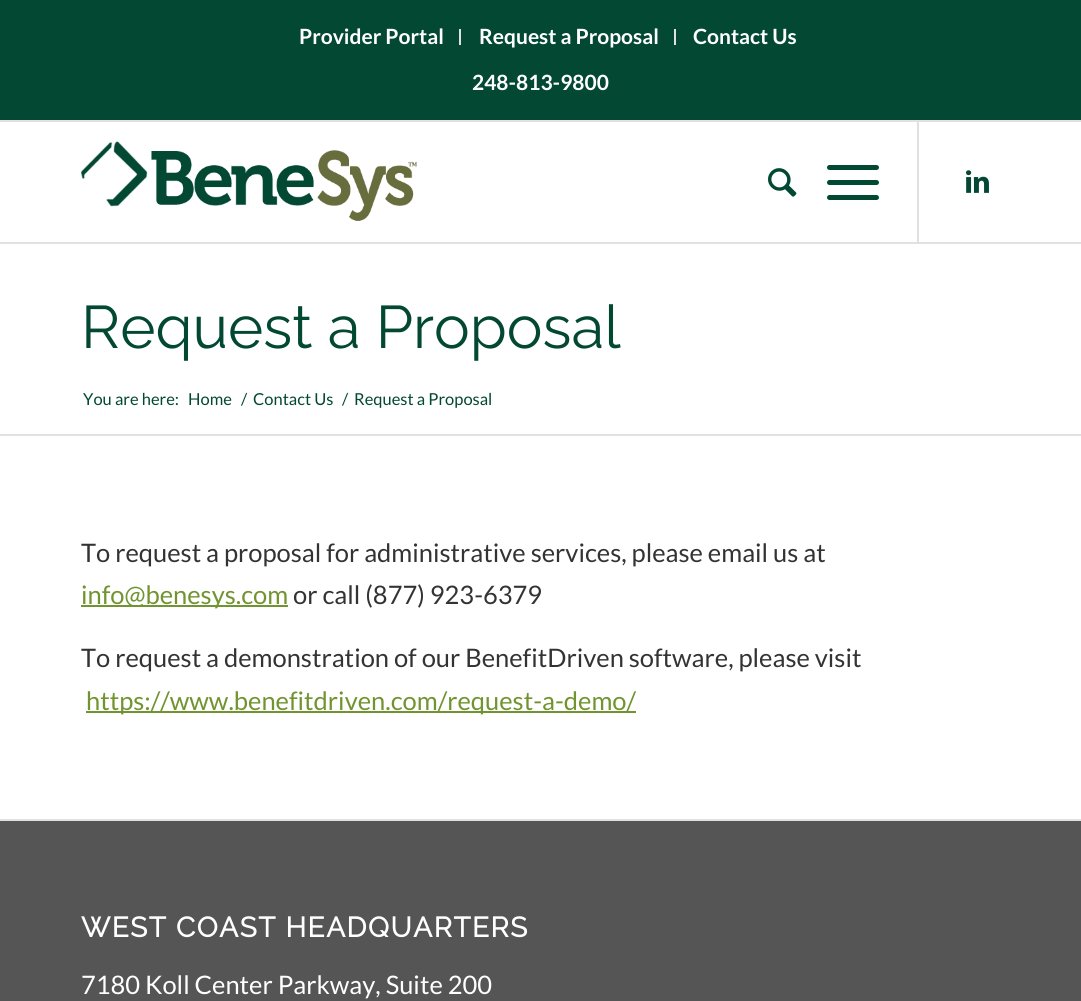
#include <cairo.h>
#include <math.h>
#include <stddef.h>


static void set_color(cairo_t *cr, unsigned color) {
    cairo_set_source_rgb(cr, (color >> 16) / 255.0, (color >> 8 & 255) / 255.0, (color & 255) / 255.0);
}

static void draw_text(cairo_t *cr, double x, double y, const char *s, const char *family, double size, int italic, int bold, unsigned color) {
    cairo_select_font_face(cr, family, italic ? CAIRO_FONT_SLANT_ITALIC : CAIRO_FONT_SLANT_NORMAL,
        bold ? CAIRO_FONT_WEIGHT_BOLD : CAIRO_FONT_WEIGHT_NORMAL);
    cairo_set_font_size(cr, size);
    set_color(cr, color);
    cairo_move_to(cr, x, y);
    cairo_show_text(cr, s);
}

static void draw_spaced(cairo_t *cr, double x, double y, const char *s, double letter, double word) {
    cairo_move_to(cr, x, y);
    while (*s) {
        char ch[5] = {0};
        int n = 0;
        do ch[n++] = *s++; while ((*s & 0xC0) == 0x80);
        cairo_show_text(cr, ch);
        cairo_rel_move_to(cr, letter + word * (*ch == ' '), 0);
    }
}

static void fill_rect(cairo_t *cr, double x, double y, double w, double h, unsigned color) {
    set_color(cr, color);
    cairo_rectangle(cr, x, y, w, h);
    cairo_fill(cr);
}

static void rounded_rect(cairo_t *cr, double x, double y, double w, double h, double r) {
    cairo_new_sub_path(cr);
    cairo_arc(cr, x + w - r, y + h - r, r, 0, M_PI / 2);
    cairo_arc(cr, x + r, y + h - r, r, M_PI / 2, M_PI);
    cairo_arc(cr, x + r, y + r, r, M_PI, 1.5 * M_PI);
    cairo_arc(cr, x + w - r, y + r, r, 1.5 * M_PI, 2 * M_PI);
    cairo_close_path(cr);
}

static void draw_image(cairo_t *cr, const char *path, double x, double y, double w, double h) {
    cairo_surface_t *image = cairo_image_surface_create_from_png(path);
    cairo_save(cr);
    cairo_set_source_surface(cr, image, x, y);
    cairo_rectangle(cr, x, y, w, h);
    cairo_fill(cr);
    cairo_restore(cr);
    cairo_surface_destroy(image);
}

int main(void) {
    cairo_surface_t *surface = cairo_image_surface_create(CAIRO_FORMAT_RGB24, 1081, 1001);
    cairo_t *cr = cairo_create(surface);
    cairo_font_options_t *options = cairo_font_options_create();
    cairo_font_options_set_hint_metrics(options, CAIRO_HINT_METRICS_OFF);
    cairo_font_options_set_hint_style(options, CAIRO_HINT_STYLE_NONE);
    cairo_set_font_options(cr, options);
    cairo_set_miter_limit(cr, 4);
    set_color(cr, 0xFFFFFF);
    cairo_paint(cr);
    fill_rect(cr, 0, 0, 1081, 120, 0x024832);
    fill_rect(cr, 0, 120, 1081, 2, 0xE1E1E1);
    fill_rect(cr, 459, 29, 2, 16, 0xE1E1E1);
    draw_text(cr, 299, 44, "Provider Portal", "Lato", 21, 0, 1, 0xFFFFFF);
    fill_rect(cr, 674, 29, 2, 16, 0xE1E1E1);
    draw_text(cr, 479, 44, "Request a Proposal", "Lato", 21, 0, 1, 0xFFFFFF);
    draw_text(cr, 693, 44, "Contact Us", "Lato", 21, 0, 1, 0xFFFFFF);
    draw_text(cr, 472, 90, "248-813-9800", "Lato", 21, 0, 1, 0xFFFFFF);
    fill_rect(cr, 0, 242, 1081, 2, 0xE1E1E1);
    draw_image(cr, "assets/img1.png", 81, 141, 336, 80);
    fill_rect(cr, 917, 122, 2, 120, 0xE1E1E1);
    draw_image(cr, "assets/img2.png", 768, 168, 29, 29);
    set_color(cr, 0x024832);
    rounded_rect(cr, 827, 180, 52, 5, 2.5);
    cairo_fill(cr);
    rounded_rect(cr, 827, 165, 52, 5, 2.5);
    cairo_fill(cr);
    rounded_rect(cr, 827, 195, 52, 5, 2.5);
    cairo_fill(cr);
    draw_image(cr, "assets/img3.png", 966, 170, 23, 23);
    draw_text(cr, 81, 348, "Request a Proposal", "Raleway Thin", 60, 0, 0, 0x024832);
    draw_text(cr, 83, 405, "You are here:", "Lato", 16.5, 0, 0, 0x024832);
    draw_text(cr, 188, 405, "Home", "Lato", 16.5, 0, 0, 0x024832);
    draw_text(cr, 241, 405, "/", "Lato", 16.5, 0, 0, 0x024832);
    draw_text(cr, 253, 405, "Contact Us", "Lato", 16.5, 0, 0, 0x024832);
    draw_text(cr, 342, 405, "/", "Lato", 16.5, 0, 0, 0x024832);
    draw_text(cr, 354, 405, "Request a Proposal", "Lato", 16.5, 0, 0, 0x024832);
    fill_rect(cr, 0, 434, 1081, 2, 0xE1E1E1);
    draw_text(cr, 81, 562, "To request a proposal for administrative services, please email us at", "Lato", 25.5, 0, 0, 0x333333);
    fill_rect(cr, 81, 605, 207, 2, 0x719430);
    draw_text(cr, 81, 604, "info@benesys.com", "Lato", 25.5, 0, 0, 0x719430);
    draw_text(cr, 293, 604, "or call (877) 923-6379", "Lato", 25.5, 0, 0, 0x333333);
    draw_text(cr, 81, 667, "To request a demonstration of our BenefitDriven software, please visit", "Lato", 25.5, 0, 0, 0x333333);
    fill_rect(cr, 86, 711, 550, 2, 0x719430);
    draw_text(cr, 86, 710, "https://www.benefitdriven.com/request-a-demo/", "Lato", 25.5, 0, 0, 0x719430);
    fill_rect(cr, 0, 821, 1081, 180, 0x555555);
    fill_rect(cr, 0, 819, 1081, 2, 0xE1E1E1);
    cairo_select_font_face(cr, "Raleway", CAIRO_FONT_SLANT_NORMAL, CAIRO_FONT_WEIGHT_BOLD);
    cairo_set_font_size(cr, 28);
    set_color(cr, 0xFFFFFF);
    draw_spaced(cr, 81, 937, "WEST COAST HEADQUARTERS", 1.5, 0);
    draw_text(cr, 81, 994, "7180 Koll Center Parkway, Suite 200", "Lato", 25.5, 0, 0, 0xFFFFFF);
    cairo_surface_write_to_png(surface, "output.png");
    cairo_font_options_destroy(options);
    cairo_destroy(cr);
    cairo_surface_destroy(surface);
    return 0;
}
